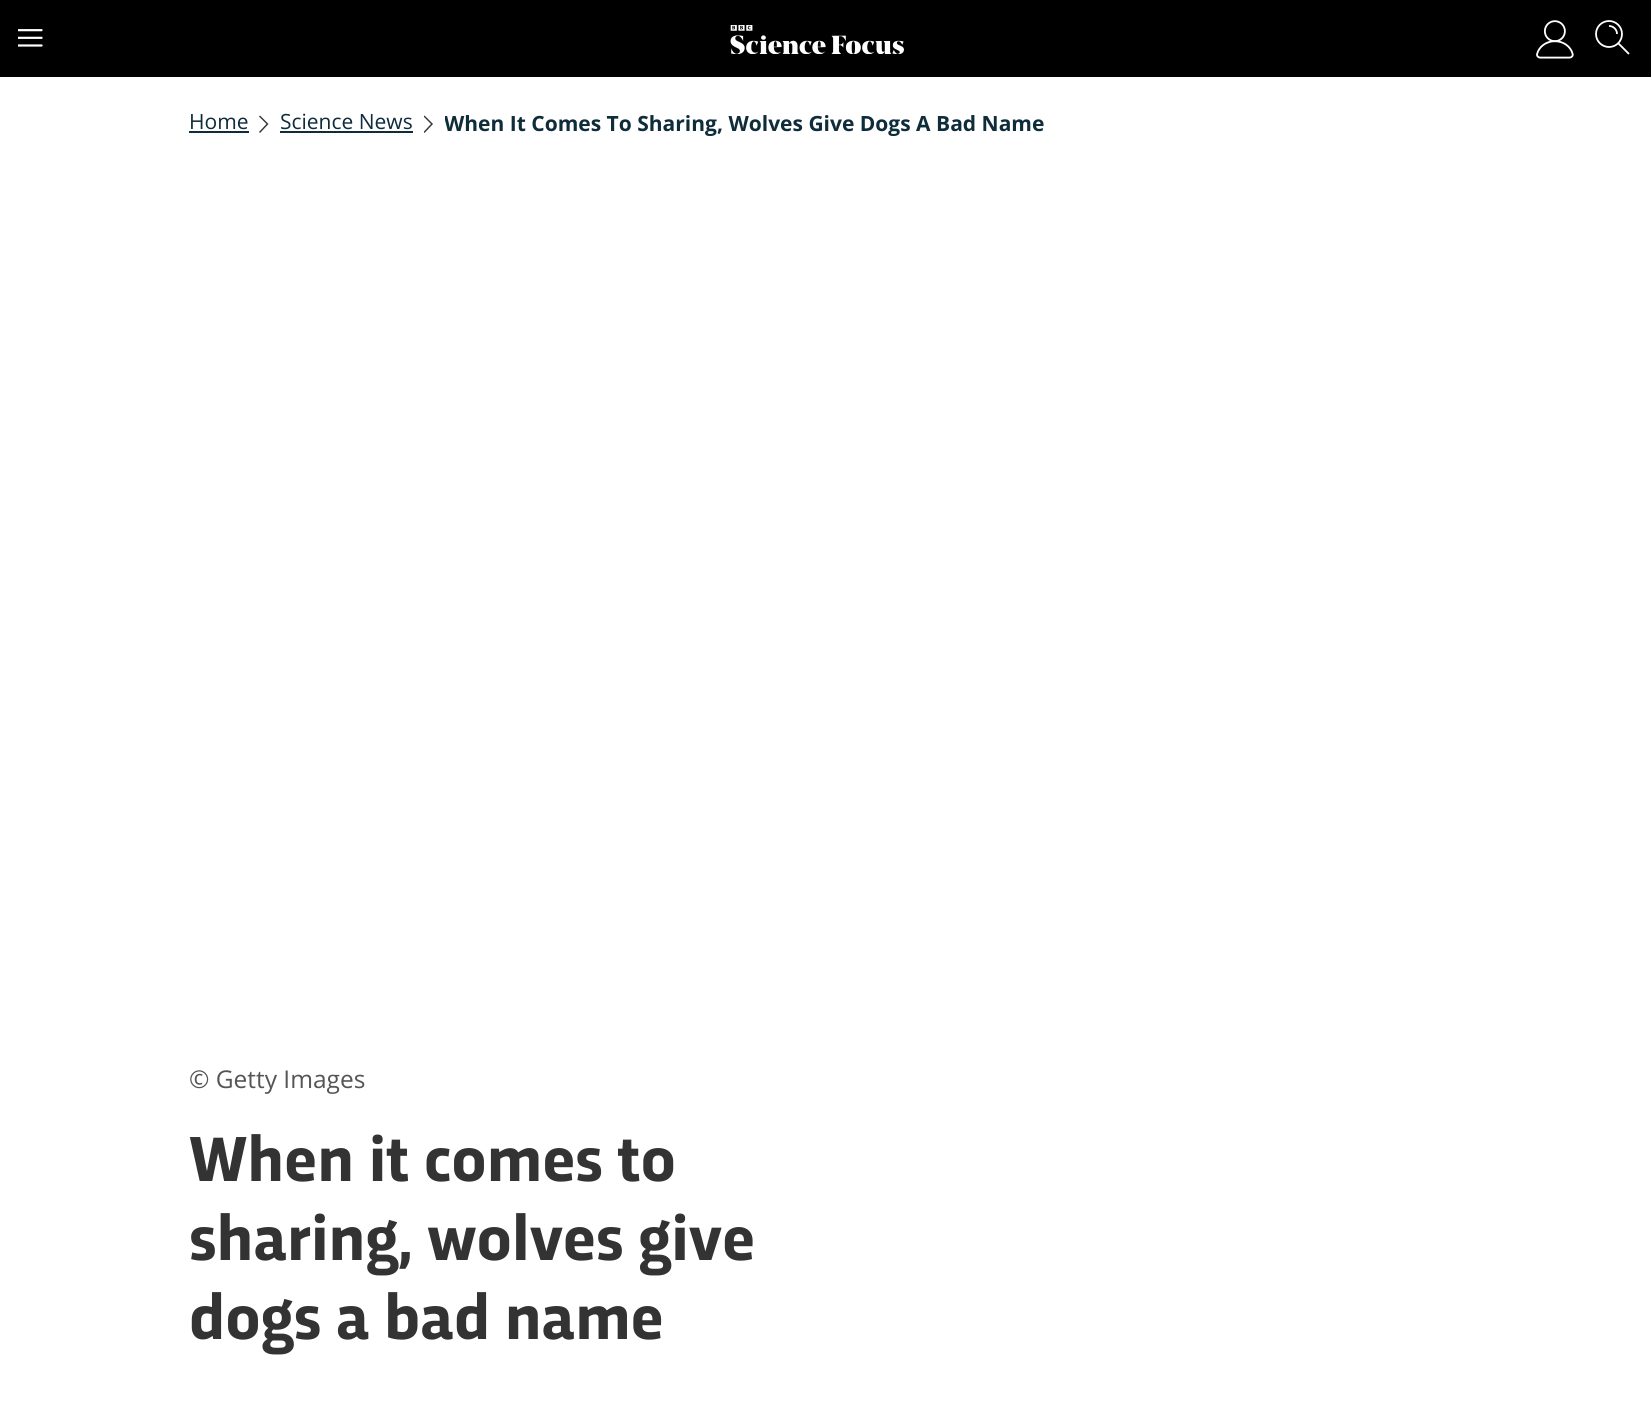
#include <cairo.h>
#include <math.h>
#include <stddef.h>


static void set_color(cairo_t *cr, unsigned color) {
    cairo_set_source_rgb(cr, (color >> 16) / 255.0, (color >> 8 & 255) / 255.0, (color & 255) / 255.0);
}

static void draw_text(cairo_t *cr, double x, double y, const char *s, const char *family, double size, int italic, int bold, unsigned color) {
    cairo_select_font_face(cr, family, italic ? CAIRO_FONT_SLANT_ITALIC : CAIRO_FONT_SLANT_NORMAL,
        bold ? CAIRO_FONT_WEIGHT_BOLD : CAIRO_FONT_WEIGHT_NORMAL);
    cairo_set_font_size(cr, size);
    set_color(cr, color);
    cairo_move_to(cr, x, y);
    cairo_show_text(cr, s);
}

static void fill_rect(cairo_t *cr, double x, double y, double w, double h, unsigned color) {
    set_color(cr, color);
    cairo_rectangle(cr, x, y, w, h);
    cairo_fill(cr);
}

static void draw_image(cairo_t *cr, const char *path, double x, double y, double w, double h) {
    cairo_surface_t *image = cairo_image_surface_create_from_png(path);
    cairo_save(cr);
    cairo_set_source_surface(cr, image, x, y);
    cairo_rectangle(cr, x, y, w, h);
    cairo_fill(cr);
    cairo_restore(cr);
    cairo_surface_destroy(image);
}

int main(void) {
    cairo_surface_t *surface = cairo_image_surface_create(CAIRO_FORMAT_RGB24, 1651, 1405);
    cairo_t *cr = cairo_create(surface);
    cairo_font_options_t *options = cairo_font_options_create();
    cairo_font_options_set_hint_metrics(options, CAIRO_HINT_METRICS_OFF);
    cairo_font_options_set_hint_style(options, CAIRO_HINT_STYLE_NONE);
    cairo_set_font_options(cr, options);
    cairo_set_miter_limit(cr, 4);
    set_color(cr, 0xFFFFFF);
    cairo_paint(cr);
    fill_rect(cr, 0, 0, 1651, 77, 0x000000);
    draw_image(cr, "assets/img1.png", 18, 29, 25, 18);
    draw_image(cr, "assets/img2.png", 730, 25, 174, 29);
    draw_image(cr, "assets/img3.png", 1536, 20, 38, 39);
    cairo_arc(cr, 1609, 34, 13, 0, 2 * M_PI);
    set_color(cr, 0xFFFFFF);
    cairo_set_line_width(cr, 1.8);
    cairo_stroke(cr);
    cairo_new_path(cr);
    cairo_move_to(cr, 1617, 34);
    cairo_curve_to(cr, 1617, 29.5, 1613.5, 26, 1609, 26);
    cairo_stroke(cr);
    cairo_new_path(cr);
    cairo_move_to(cr, 1629, 54);
    cairo_line_to(cr, 1618, 43);
    cairo_set_line_join(cr, CAIRO_LINE_JOIN_ROUND);
    cairo_stroke(cr);
    draw_text(cr, 189, 129, "Home", "Open Sans", 21, 0, 0, 0x0F2C3B);
    fill_rect(cr, 189, 131, 60, 2, 0x0F2C3B);
    set_color(cr, 0x343434);
    cairo_set_fill_rule(cr, CAIRO_FILL_RULE_EVEN_ODD);
    cairo_new_path(cr);
    cairo_move_to(cr, 260, 133);
    cairo_line_to(cr, 268.5, 124);
    cairo_line_to(cr, 260, 115.5);
    cairo_line_to(cr, 259, 116.5);
    cairo_line_to(cr, 266.5, 124);
    cairo_line_to(cr, 259, 132);
    cairo_close_path(cr);
    cairo_fill(cr);
    draw_text(cr, 280, 129, "Science News", "Open Sans", 21, 0, 0, 0x0F2C3B);
    fill_rect(cr, 280, 131, 133, 2, 0x0F2C3B);
    cairo_save(cr);
    cairo_set_fill_rule(cr, CAIRO_FILL_RULE_WINDING);
    cairo_rectangle(cr, 424, 109, 10, 31);
    cairo_clip(cr);
    set_color(cr, 0x343434);
    cairo_set_fill_rule(cr, CAIRO_FILL_RULE_EVEN_ODD);
    cairo_new_path(cr);
    cairo_move_to(cr, 424.5, 133);
    cairo_line_to(cr, 433, 124);
    cairo_line_to(cr, 424.5, 115.5);
    cairo_line_to(cr, 423.5, 116.5);
    cairo_line_to(cr, 431, 124);
    cairo_line_to(cr, 423.5, 132);
    cairo_close_path(cr);
    cairo_fill(cr);
    cairo_restore(cr);
    cairo_save(cr);
    cairo_set_fill_rule(cr, CAIRO_FILL_RULE_WINDING);
    cairo_rectangle(cr, 445, 109, 1018, 29);
    cairo_clip(cr);
    draw_text(cr, 444, 131, "When It Comes To Sharing, Wolves Give Dogs A Bad Name", "Open Sans", 21, 0, 1, 0x0F2C3B);
    cairo_restore(cr);
    draw_text(cr, 189, 1088, "© Getty Images", "Open Sans", 24.5, 0, 0, 0x555555);
    draw_text(cr, 189, 1181, "When it comes to", "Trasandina", 66.5, 0, 1, 0x333333);
    draw_text(cr, 189, 1260, "sharing, wolves give", "Trasandina", 66.5, 0, 1, 0x333333);
    draw_text(cr, 189, 1339, "dogs a bad name", "Trasandina", 66.5, 0, 1, 0x333333);
    cairo_surface_write_to_png(surface, "output.png");
    cairo_font_options_destroy(options);
    cairo_destroy(cr);
    cairo_surface_destroy(surface);
    return 0;
}
